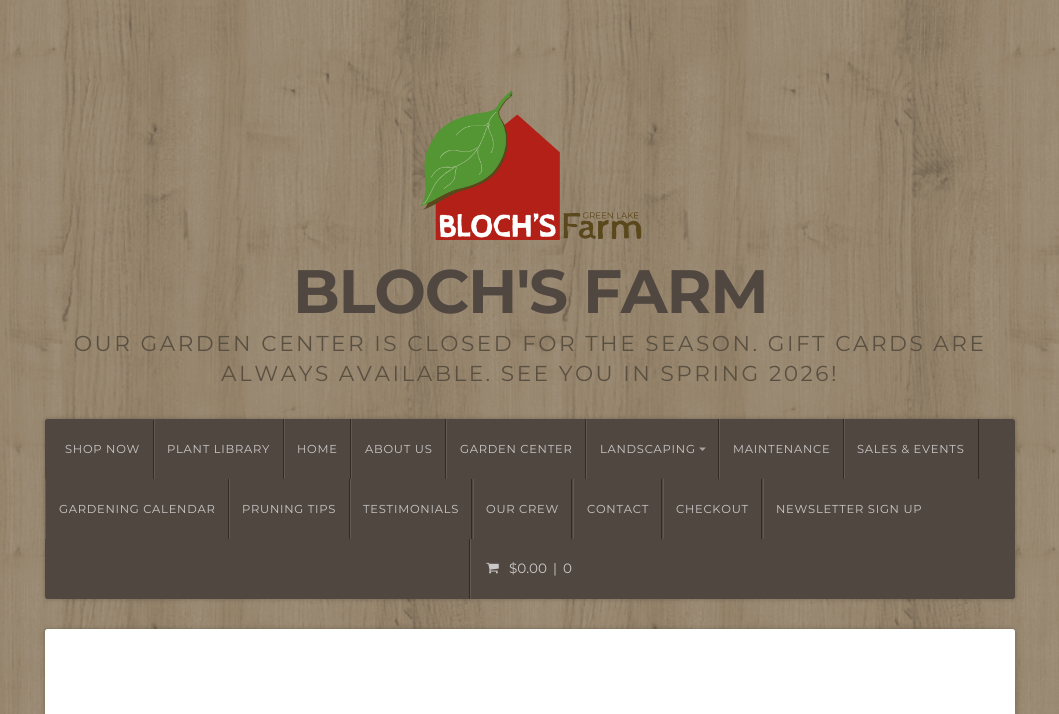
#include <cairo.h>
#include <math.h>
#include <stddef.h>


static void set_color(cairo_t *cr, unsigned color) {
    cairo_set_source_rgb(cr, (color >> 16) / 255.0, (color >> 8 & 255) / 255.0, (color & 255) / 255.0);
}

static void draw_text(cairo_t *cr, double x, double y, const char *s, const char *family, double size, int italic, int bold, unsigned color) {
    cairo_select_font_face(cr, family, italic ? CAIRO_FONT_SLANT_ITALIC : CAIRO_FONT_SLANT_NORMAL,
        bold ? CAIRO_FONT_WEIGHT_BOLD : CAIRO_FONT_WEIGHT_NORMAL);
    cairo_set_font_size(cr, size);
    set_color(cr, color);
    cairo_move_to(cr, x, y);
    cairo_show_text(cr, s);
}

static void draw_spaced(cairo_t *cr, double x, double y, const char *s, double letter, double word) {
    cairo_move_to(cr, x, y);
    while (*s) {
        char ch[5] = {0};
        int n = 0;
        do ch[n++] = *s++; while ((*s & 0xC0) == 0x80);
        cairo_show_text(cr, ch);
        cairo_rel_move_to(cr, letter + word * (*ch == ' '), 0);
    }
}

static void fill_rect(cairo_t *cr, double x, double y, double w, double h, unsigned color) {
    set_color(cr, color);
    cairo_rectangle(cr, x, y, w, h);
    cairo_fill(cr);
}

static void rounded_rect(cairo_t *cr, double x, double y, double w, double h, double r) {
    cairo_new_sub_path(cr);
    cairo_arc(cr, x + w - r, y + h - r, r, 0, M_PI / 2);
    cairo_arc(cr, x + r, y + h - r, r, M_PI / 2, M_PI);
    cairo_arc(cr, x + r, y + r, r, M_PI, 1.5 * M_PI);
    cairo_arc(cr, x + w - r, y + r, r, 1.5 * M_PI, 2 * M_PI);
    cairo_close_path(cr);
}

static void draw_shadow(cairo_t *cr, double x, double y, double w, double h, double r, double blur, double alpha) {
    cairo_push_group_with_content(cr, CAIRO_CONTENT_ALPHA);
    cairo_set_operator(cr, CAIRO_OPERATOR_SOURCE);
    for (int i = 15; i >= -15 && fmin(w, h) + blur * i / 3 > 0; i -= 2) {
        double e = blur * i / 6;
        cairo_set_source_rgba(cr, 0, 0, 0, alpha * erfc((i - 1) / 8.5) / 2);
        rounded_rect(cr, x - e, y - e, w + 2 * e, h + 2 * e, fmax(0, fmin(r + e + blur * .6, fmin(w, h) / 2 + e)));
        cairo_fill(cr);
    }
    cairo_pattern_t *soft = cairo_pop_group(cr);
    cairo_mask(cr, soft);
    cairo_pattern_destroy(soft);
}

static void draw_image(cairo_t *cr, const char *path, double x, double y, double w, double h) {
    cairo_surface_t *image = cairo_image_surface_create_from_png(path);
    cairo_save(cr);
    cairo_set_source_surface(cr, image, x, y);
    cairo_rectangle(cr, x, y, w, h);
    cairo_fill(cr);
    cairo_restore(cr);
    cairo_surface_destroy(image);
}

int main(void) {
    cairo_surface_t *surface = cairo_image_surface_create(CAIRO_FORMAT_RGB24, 1059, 714);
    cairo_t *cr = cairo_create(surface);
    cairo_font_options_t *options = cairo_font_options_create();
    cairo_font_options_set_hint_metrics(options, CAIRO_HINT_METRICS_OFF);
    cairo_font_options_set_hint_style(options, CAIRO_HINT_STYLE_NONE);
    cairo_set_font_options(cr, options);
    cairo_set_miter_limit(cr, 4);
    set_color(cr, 0xFFFFFF);
    cairo_paint(cr);
    draw_image(cr, "assets/img1.png", 0, 0, 1059, 714);
    draw_image(cr, "assets/img2.png", 418, 90, 224, 150);
    cairo_select_font_face(cr, "Montserrat", CAIRO_FONT_SLANT_NORMAL, CAIRO_FONT_WEIGHT_BOLD);
    cairo_set_font_size(cr, 61.25);
    set_color(cr, 0x504741);
    draw_spaced(cr, 293, 313, "BLOCH'S FARM", -1.25, 0);
    cairo_select_font_face(cr, "Montserrat", CAIRO_FONT_SLANT_NORMAL, CAIRO_FONT_WEIGHT_NORMAL);
    cairo_set_font_size(cr, 21.6);
    set_color(cr, 0x5A5041);
    draw_spaced(cr, 74, 351, "OUR GARDEN CENTER IS CLOSED FOR THE SEASON. GIFT CARDS ARE", 2.5, 0);
    draw_spaced(cr, 221, 381, "ALWAYS AVAILABLE. SEE YOU IN SPRING 2026!", 2.5, 0);
    set_color(cr, 0x000000);
    draw_shadow(cr, 45, 419, 970, 180, 2.5, 2.5, 0.24);
    set_color(cr, 0x504741);
    rounded_rect(cr, 45, 419, 970, 180, 2.5);
    cairo_fill(cr);
    fill_rect(cr, 153, 420, 1, 59, 0x302B27);
    cairo_set_font_size(cr, 11.5);
    set_color(cr, 0xCBC8C6);
    draw_spaced(cr, 65, 453, "SHOP NOW", 0.75, 0);
    fill_rect(cr, 283, 419, 1, 60, 0x302B27);
    fill_rect(cr, 154, 419, 1, 60, 0x625954);
    set_color(cr, 0xCBC8C6);
    draw_spaced(cr, 167, 453, "PLANT LIBRARY", 0.75, 0);
    fill_rect(cr, 350, 419, 1, 60, 0x302B27);
    fill_rect(cr, 284, 419, 1, 60, 0x625954);
    set_color(cr, 0xCBC8C6);
    draw_spaced(cr, 297, 453, "HOME", 0.75, 0);
    fill_rect(cr, 445, 419, 1, 60, 0x302B27);
    fill_rect(cr, 351, 419, 1, 60, 0x625954);
    set_color(cr, 0xCBC8C6);
    draw_spaced(cr, 365, 453, "ABOUT US", 0.75, 0);
    fill_rect(cr, 585, 419, 1, 60, 0x302B27);
    fill_rect(cr, 446, 419, 1, 60, 0x625954);
    set_color(cr, 0xCBC8C6);
    draw_spaced(cr, 460, 453, "GARDEN CENTER", 0.75, 0);
    fill_rect(cr, 718, 419, 1, 60, 0x302B27);
    fill_rect(cr, 586, 419, 1, 60, 0x625954);
    set_color(cr, 0xCBC8C6);
    draw_spaced(cr, 600, 453, "LANDSCAPING", 0.75, 0);
    set_color(cr, 0xA8A3A0);
    cairo_new_path(cr);
    cairo_move_to(cr, 699, 447.5);
    cairo_line_to(cr, 706, 447.5);
    cairo_line_to(cr, 702.5, 451);
    cairo_close_path(cr);
    cairo_fill(cr);
    fill_rect(cr, 843, 419, 1, 60, 0x302B27);
    fill_rect(cr, 719, 419, 1, 60, 0x625954);
    set_color(cr, 0xCBC8C6);
    draw_spaced(cr, 733, 453, "MAINTENANCE", 0.75, 0);
    fill_rect(cr, 978, 419, 1, 60, 0x302B27);
    fill_rect(cr, 844, 419, 1, 60, 0x625954);
    set_color(cr, 0xCBC8C6);
    draw_spaced(cr, 857, 453, "SALES & EVENTS", 0.75, 0);
    fill_rect(cr, 228, 479, 1, 60, 0x302B27);
    fill_rect(cr, 45, 479, 1, 60, 0x625954);
    set_color(cr, 0xCBC8C6);
    draw_spaced(cr, 59, 513, "GARDENING CALENDAR", 0.75, 0);
    fill_rect(cr, 349, 479, 1, 60, 0x302B27);
    fill_rect(cr, 229, 479, 1, 60, 0x625954);
    set_color(cr, 0xCBC8C6);
    draw_spaced(cr, 242, 513, "PRUNING TIPS", 0.75, 0);
    fill_rect(cr, 471, 479, 1, 60, 0x302B27);
    fill_rect(cr, 350, 479, 1, 60, 0x625954);
    set_color(cr, 0xCBC8C6);
    draw_spaced(cr, 363, 513, "TESTIMONIALS", 0.75, 0);
    fill_rect(cr, 571, 479, 1, 60, 0x302B27);
    fill_rect(cr, 473, 479, 1, 60, 0x625954);
    set_color(cr, 0xCBC8C6);
    draw_spaced(cr, 486, 513, "OUR CREW", 0.75, 0);
    fill_rect(cr, 661, 479, 1, 60, 0x302B27);
    fill_rect(cr, 573, 479, 1, 60, 0x625954);
    set_color(cr, 0xCBC8C6);
    draw_spaced(cr, 587, 513, "CONTACT", 0.75, 0);
    fill_rect(cr, 761, 479, 1, 60, 0x302B27);
    fill_rect(cr, 663, 479, 1, 60, 0x625954);
    set_color(cr, 0xCBC8C6);
    draw_spaced(cr, 676, 513, "CHECKOUT", 0.75, 0);
    fill_rect(cr, 763, 479, 1, 60, 0x625954);
    set_color(cr, 0xCBC8C6);
    draw_spaced(cr, 776, 513, "NEWSLETTER SIGN UP", 0.75, 0);
    fill_rect(cr, 469, 539, 1, 60, 0x302B27);
    fill_rect(cr, 470, 539, 1, 60, 0x625954);
    draw_image(cr, "assets/img3.png", 486, 562, 13, 12);
    draw_text(cr, 509, 573, "$0.00", "Montserrat", 13.5, 0, 0, 0xCBC8C6);
    draw_text(cr, 553, 573, "|", "Montserrat", 13.5, 0, 0, 0xCBC8C6);
    draw_text(cr, 563, 573, "0", "Montserrat", 13.5, 0, 0, 0xCBC8C6);
    set_color(cr, 0x000000);
    draw_shadow(cr, 45, 629, 970, 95, 2.5, 2.5, 0.24);
    set_color(cr, 0xFFFFFF);
    rounded_rect(cr, 45, 629, 970, 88, 2.5);
    cairo_fill(cr);
    cairo_surface_write_to_png(surface, "output.png");
    cairo_font_options_destroy(options);
    cairo_destroy(cr);
    cairo_surface_destroy(surface);
    return 0;
}
